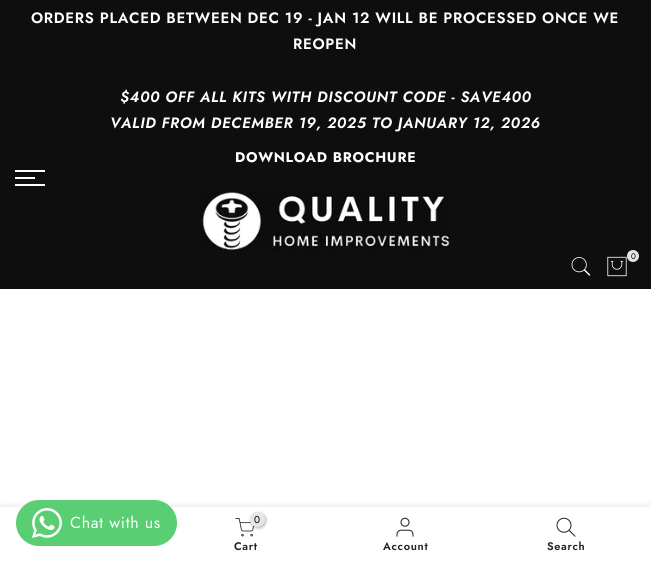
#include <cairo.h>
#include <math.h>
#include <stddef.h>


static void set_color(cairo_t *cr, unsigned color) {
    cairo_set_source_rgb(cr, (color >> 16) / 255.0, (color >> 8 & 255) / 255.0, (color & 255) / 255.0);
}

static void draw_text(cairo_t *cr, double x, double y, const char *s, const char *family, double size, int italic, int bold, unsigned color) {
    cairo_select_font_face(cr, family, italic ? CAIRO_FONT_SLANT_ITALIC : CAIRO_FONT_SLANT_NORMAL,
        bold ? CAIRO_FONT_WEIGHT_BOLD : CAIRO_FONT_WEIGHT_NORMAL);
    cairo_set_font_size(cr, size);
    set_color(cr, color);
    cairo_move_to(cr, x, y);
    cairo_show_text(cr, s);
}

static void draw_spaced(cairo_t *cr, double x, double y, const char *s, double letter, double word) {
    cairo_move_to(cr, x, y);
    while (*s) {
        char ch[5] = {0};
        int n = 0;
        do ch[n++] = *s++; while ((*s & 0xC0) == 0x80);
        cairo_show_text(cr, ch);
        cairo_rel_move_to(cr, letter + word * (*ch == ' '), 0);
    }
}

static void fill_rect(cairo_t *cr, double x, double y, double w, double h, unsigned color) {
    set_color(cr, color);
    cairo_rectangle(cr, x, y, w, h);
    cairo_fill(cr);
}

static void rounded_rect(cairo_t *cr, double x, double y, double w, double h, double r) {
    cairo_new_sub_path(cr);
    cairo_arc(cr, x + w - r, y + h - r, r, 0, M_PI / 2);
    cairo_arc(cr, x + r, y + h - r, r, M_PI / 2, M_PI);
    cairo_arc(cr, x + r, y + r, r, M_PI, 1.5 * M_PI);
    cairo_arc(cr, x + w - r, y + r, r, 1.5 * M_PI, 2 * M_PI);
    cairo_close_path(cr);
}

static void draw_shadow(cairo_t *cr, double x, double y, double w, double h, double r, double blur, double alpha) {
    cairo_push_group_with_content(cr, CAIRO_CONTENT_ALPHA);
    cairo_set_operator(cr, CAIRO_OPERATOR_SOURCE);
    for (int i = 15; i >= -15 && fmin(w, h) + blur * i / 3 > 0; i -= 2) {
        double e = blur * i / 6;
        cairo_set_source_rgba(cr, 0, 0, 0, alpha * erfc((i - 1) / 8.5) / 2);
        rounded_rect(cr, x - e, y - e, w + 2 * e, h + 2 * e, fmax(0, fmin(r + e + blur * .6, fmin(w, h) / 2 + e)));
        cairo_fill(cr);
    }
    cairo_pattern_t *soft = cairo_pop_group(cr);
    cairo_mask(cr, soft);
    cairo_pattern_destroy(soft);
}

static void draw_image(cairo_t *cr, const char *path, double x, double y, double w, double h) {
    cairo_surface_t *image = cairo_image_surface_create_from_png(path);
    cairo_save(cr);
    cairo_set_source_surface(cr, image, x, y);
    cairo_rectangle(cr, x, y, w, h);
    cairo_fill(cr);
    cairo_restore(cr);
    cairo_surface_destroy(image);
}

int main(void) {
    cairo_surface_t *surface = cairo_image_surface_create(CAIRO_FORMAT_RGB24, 651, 562);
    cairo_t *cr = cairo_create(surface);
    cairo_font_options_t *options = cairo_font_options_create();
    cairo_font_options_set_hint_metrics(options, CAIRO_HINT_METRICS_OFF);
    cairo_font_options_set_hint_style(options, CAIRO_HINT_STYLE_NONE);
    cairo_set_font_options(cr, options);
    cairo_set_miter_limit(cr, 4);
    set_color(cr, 0xFFFFFF);
    cairo_paint(cr);
    fill_rect(cr, 0, 0, 651, 289, 0x0E0E0E);
    cairo_select_font_face(cr, "Jost SemiBold", CAIRO_FONT_SLANT_NORMAL, CAIRO_FONT_WEIGHT_NORMAL);
    cairo_set_font_size(cr, 15);
    set_color(cr, 0xFFFFFF);
    draw_spaced(cr, 31, 23, "ORDERS PLACED BETWEEN DEC 19 - JAN 12 WILL BE PROCESSED ONCE WE", 0.7, 0);
    draw_spaced(cr, 293, 49, "REOPEN", 0.7, 0);
    cairo_select_font_face(cr, "Jost SemiBold", CAIRO_FONT_SLANT_ITALIC, CAIRO_FONT_WEIGHT_NORMAL);
    draw_spaced(cr, 120, 102, "$400 OFF ALL KITS WITH DISCOUNT CODE - SAVE400", 0.7, 0);
    draw_spaced(cr, 110, 128, "VALID FROM DECEMBER 19, 2025 TO JANUARY 12, 2026", 0.7, 0);
    cairo_select_font_face(cr, "Jost", CAIRO_FONT_SLANT_NORMAL, CAIRO_FONT_WEIGHT_BOLD);
    cairo_set_font_size(cr, 14);
    draw_spaced(cr, 235, 162, "DOWNLOAD BROCHURE", 0.7, 0);
    fill_rect(cr, 15, 170, 30, 2, 0xFFFFFF);
    fill_rect(cr, 15, 177, 20, 2, 0xFFFFFF);
    fill_rect(cr, 15, 184, 30, 2, 0xFFFFFF);
    draw_image(cr, "assets/img1.png", 201, 191, 249, 59);
    draw_image(cr, "assets/img2.png", 571, 257, 20, 19);
    draw_image(cr, "assets/img3.png", 607, 256, 20, 21);
    set_color(cr, 0xE6E6E6);
    cairo_arc(cr, 633, 256, 6, 0, 2 * M_PI);
    cairo_fill(cr);
    draw_text(cr, 631, 259, "0", "Jost", 8, 0, 0, 0x000000);
    set_color(cr, 0x000000);
    draw_shadow(cr, 0, 507, 651, 55, 0, 4.5, 0.12);
    fill_rect(cr, 0, 507, 651, 55, 0xFFFFFF);
    set_color(cr, 0x59CE72);
    rounded_rect(cr, 16, 500, 161, 46, 23);
    cairo_fill(cr);
    draw_image(cr, "assets/img4.png", 32, 508, 30, 30);
    cairo_set_font_size(cr, 16);
    set_color(cr, 0xFFFFFF);
    draw_spaced(cr, 70, 528, "Chat with us", 0.7, 0);
    draw_image(cr, "assets/img5.png", 235, 518, 19, 19);
    set_color(cr, 0x000000);
    draw_shadow(cr, 251, 513, 15, 15, 7.5, 1.5, 0.3);
    set_color(cr, 0xE6E6E6);
    cairo_arc(cr, 257.5, 519.5, 7.5, 0, 2 * M_PI);
    cairo_fill(cr);
    draw_text(cr, 254, 523, "0", "Jost", 10, 0, 0, 0x000000);
    cairo_select_font_face(cr, "Jost SemiBold", CAIRO_FONT_SLANT_NORMAL, CAIRO_FONT_WEIGHT_NORMAL);
    cairo_set_font_size(cr, 11);
    set_color(cr, 0x222222);
    draw_spaced(cr, 234, 550, "Cart", 0.7, 0);
    draw_image(cr, "assets/img6.png", 396, 517, 18, 20);
    draw_spaced(cr, 383, 550, "Account", 0.7, 0);
    draw_image(cr, "assets/img7.png", 556, 517, 20, 20);
    draw_spaced(cr, 547, 550, "Search", 0.7, 0);
    cairo_surface_write_to_png(surface, "output.png");
    cairo_font_options_destroy(options);
    cairo_destroy(cr);
    cairo_surface_destroy(surface);
    return 0;
}
